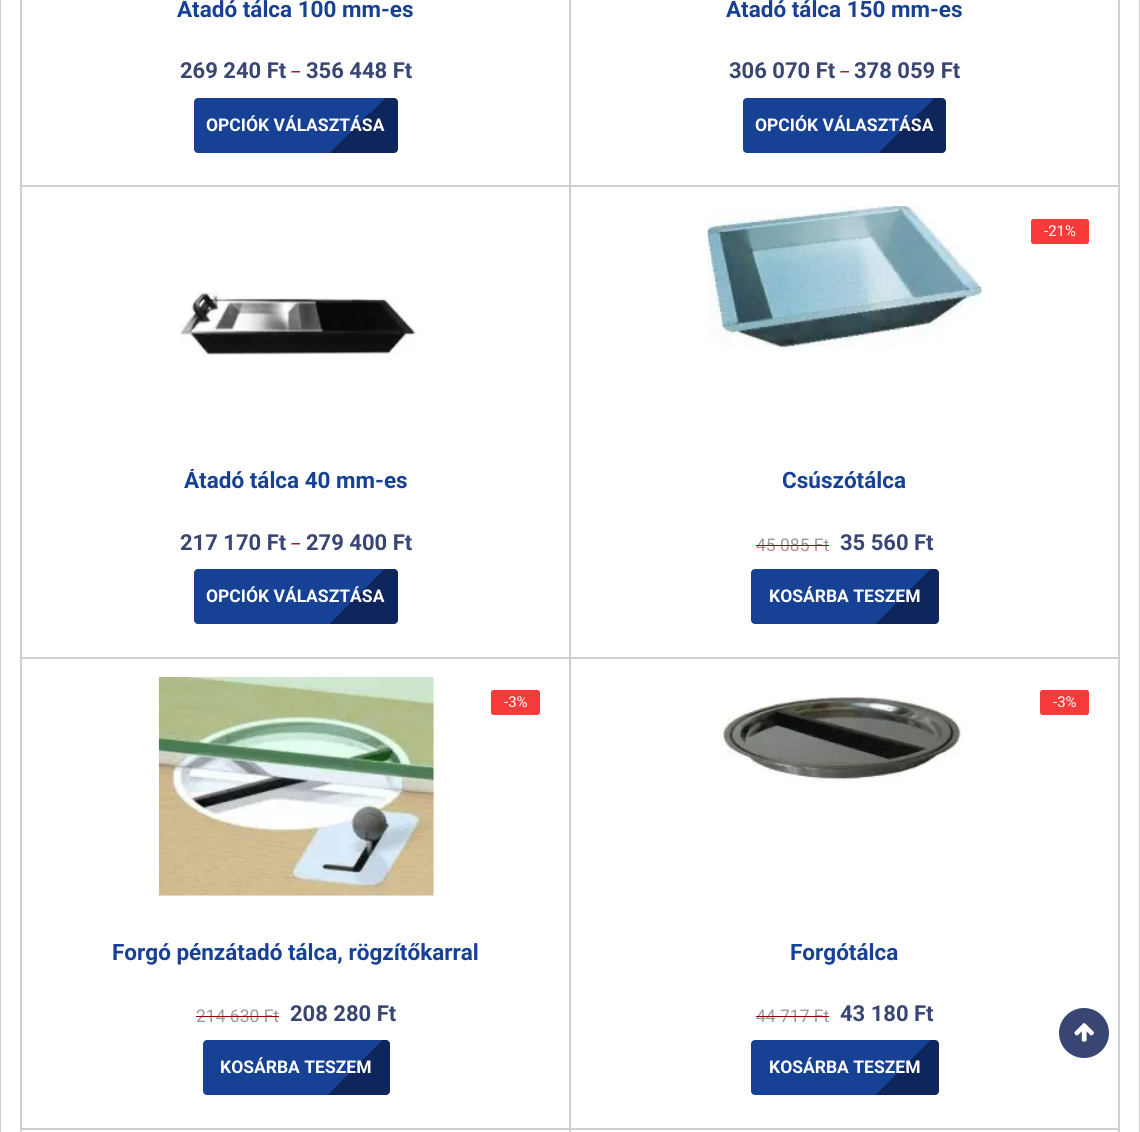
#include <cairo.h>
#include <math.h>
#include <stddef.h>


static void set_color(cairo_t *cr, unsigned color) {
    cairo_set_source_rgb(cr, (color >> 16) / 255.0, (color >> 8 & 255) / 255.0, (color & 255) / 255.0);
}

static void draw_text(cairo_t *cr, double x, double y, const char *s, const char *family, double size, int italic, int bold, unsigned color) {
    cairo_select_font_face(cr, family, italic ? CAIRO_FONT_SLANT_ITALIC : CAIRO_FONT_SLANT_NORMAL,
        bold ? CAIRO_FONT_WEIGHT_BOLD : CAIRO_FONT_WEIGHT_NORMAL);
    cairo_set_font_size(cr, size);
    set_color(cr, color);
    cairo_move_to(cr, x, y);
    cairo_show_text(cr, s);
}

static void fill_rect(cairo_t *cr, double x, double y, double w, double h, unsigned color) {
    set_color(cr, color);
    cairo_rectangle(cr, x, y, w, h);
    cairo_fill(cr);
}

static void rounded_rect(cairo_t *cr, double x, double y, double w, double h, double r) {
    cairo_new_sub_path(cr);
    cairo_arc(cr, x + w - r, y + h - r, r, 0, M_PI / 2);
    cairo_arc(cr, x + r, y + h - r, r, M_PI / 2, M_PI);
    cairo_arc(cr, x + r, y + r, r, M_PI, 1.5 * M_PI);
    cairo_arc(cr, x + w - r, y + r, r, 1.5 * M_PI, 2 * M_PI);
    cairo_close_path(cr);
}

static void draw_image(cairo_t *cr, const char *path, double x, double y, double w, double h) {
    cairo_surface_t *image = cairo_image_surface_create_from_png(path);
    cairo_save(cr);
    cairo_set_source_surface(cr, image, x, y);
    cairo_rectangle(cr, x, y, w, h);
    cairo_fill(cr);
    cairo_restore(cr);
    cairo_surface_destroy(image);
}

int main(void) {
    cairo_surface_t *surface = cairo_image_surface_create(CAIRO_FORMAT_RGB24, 1140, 1132);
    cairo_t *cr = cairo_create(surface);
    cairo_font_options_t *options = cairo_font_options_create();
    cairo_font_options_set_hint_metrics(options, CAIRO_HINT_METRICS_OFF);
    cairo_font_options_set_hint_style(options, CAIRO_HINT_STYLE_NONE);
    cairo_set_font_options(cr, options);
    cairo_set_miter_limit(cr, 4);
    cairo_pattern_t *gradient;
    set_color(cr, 0xFFFFFF);
    cairo_paint(cr);
    fill_rect(cr, 1139, 0, 1, 1132, 0xCFCFCF);
    fill_rect(cr, 0, 0, 1, 1132, 0xCFCFCF);
    fill_rect(cr, 1119, 0, 1, 1132, 0xCFCFCF);
    fill_rect(cr, 20, 0, 1, 1132, 0xCFCFCF);
    cairo_rectangle(cr, 21.5, -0.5, 548, 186);
    cairo_set_line_width(cr, 1);
    cairo_stroke(cr);
    draw_text(cr, 177, 17, "Átadó tálca 100 mm-es", "Roboto", 22.5, 0, 1, 0x164194);
    draw_text(cr, 180, 78, "269 240 Ft", "Roboto", 22, 0, 1, 0x394673);
    draw_text(cr, 290, 78, "–", "Roboto", 17.5, 0, 0, 0x990000);
    draw_text(cr, 306, 78, "356 448 Ft", "Roboto", 22, 0, 1, 0x394673);
    gradient = cairo_pattern_create_linear(231, 60, 360, 190);
    cairo_pattern_add_color_stop_rgba(gradient, 0.74, 0.086, 0.255, 0.58, 1);
    cairo_pattern_add_color_stop_rgba(gradient, 0.74, 0.059, 0.149, 0.361, 1);
    cairo_set_source(cr, gradient);
    cairo_pattern_destroy(gradient);
    rounded_rect(cr, 194, 98, 204, 55, 4);
    cairo_fill(cr);
    draw_text(cr, 206, 131, "OPCIÓK VÁLASZTÁSA", "Roboto", 17.5, 0, 1, 0xFFFFFF);
    cairo_rectangle(cr, 570.5, -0.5, 548, 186);
    set_color(cr, 0xCFCFCF);
    cairo_stroke(cr);
    draw_text(cr, 726, 17, "Átadó tálca 150 mm-es", "Roboto", 22.5, 0, 1, 0x164194);
    draw_text(cr, 729, 78, "306 070 Ft", "Roboto", 22, 0, 1, 0x394673);
    draw_text(cr, 839, 78, "–", "Roboto", 17.5, 0, 0, 0x990000);
    draw_text(cr, 854, 78, "378 059 Ft", "Roboto", 22, 0, 1, 0x394673);
    gradient = cairo_pattern_create_linear(780, 60, 909, 190);
    cairo_pattern_add_color_stop_rgba(gradient, 0.74, 0.086, 0.255, 0.58, 1);
    cairo_pattern_add_color_stop_rgba(gradient, 0.74, 0.059, 0.149, 0.361, 1);
    cairo_set_source(cr, gradient);
    cairo_pattern_destroy(gradient);
    rounded_rect(cr, 743, 98, 203, 55, 4);
    cairo_fill(cr);
    draw_text(cr, 755, 131, "OPCIÓK VÁLASZTÁSA", "Roboto", 17.5, 0, 1, 0xFFFFFF);
    cairo_rectangle(cr, 21.5, 186.5, 548, 471);
    set_color(cr, 0xCFCFCF);
    cairo_stroke(cr);
    draw_image(cr, "assets/img1.png", 180, 292, 237, 64);
    cairo_save(cr);
    cairo_rectangle(cr, 39, 469, 514, 50);
    cairo_clip(cr);
    draw_text(cr, 184, 488, "Átadó tálca 40 mm-es", "Roboto", 22.5, 0, 1, 0x164194);
    cairo_restore(cr);
    draw_text(cr, 180, 550, "217 170 Ft", "Roboto", 22, 0, 1, 0x394673);
    draw_text(cr, 290, 550, "–", "Roboto", 17.5, 0, 0, 0x990000);
    draw_text(cr, 306, 550, "279 400 Ft", "Roboto", 22, 0, 1, 0x394673);
    gradient = cairo_pattern_create_linear(231, 532, 360, 661);
    cairo_pattern_add_color_stop_rgba(gradient, 0.74, 0.086, 0.255, 0.58, 1);
    cairo_pattern_add_color_stop_rgba(gradient, 0.74, 0.059, 0.149, 0.361, 1);
    cairo_set_source(cr, gradient);
    cairo_pattern_destroy(gradient);
    rounded_rect(cr, 194, 569, 204, 55, 4);
    cairo_fill(cr);
    draw_text(cr, 206, 602, "OPCIÓK VÁLASZTÁSA", "Roboto", 17.5, 0, 1, 0xFFFFFF);
    cairo_rectangle(cr, 570.5, 186.5, 548, 471);
    set_color(cr, 0xCFCFCF);
    cairo_stroke(cr);
    draw_image(cr, "assets/img2.png", 707, 205, 276, 146);
    set_color(cr, 0xF83A3A);
    rounded_rect(cr, 1031, 219, 58, 25, 2.5);
    cairo_fill(cr);
    draw_text(cr, 1044, 236, "-21%", "Roboto", 15, 0, 0, 0xFFFFFF);
    draw_text(cr, 782, 488, "Csúszótálca", "Roboto", 22.5, 0, 1, 0x164194);
    draw_text(cr, 756, 551, "45 085 Ft", "Roboto", 17.5, 0, 0, 0x999999);
    fill_rect(cr, 756, 545, 73, 1, 0x990000);
    draw_text(cr, 840, 550, "35 560 Ft", "Roboto", 22, 0, 1, 0x394673);
    gradient = cairo_pattern_create_linear(784, 536, 906, 657);
    cairo_pattern_add_color_stop_rgba(gradient, 0.74, 0.086, 0.255, 0.58, 1);
    cairo_pattern_add_color_stop_rgba(gradient, 0.74, 0.059, 0.149, 0.361, 1);
    cairo_set_source(cr, gradient);
    cairo_pattern_destroy(gradient);
    rounded_rect(cr, 751, 569, 188, 55, 4);
    cairo_fill(cr);
    draw_text(cr, 769, 602, "KOSÁRBA TESZEM", "Roboto", 17.5, 0, 1, 0xFFFFFF);
    cairo_rectangle(cr, 21.5, 658.5, 548, 470);
    set_color(cr, 0xCFCFCF);
    cairo_stroke(cr);
    draw_image(cr, "assets/img3.png", 158, 677, 276, 219);
    set_color(cr, 0xF83A3A);
    rounded_rect(cr, 491, 690, 49, 25, 2.5);
    cairo_fill(cr);
    draw_text(cr, 504, 707, "-3%", "Roboto", 15, 0, 0, 0xFFFFFF);
    draw_text(cr, 112, 960, "Forgó pénzátadó tálca, rögzítőkarral", "Roboto", 22.5, 0, 1, 0x164194);
    draw_text(cr, 196, 1022, "214 630 Ft", "Roboto", 17.5, 0, 0, 0x999999);
    fill_rect(cr, 196, 1016, 83, 1, 0x990000);
    draw_text(cr, 290, 1021, "208 280 Ft", "Roboto", 22, 0, 1, 0x394673);
    gradient = cairo_pattern_create_linear(236, 1007, 357, 1128);
    cairo_pattern_add_color_stop_rgba(gradient, 0.74, 0.086, 0.255, 0.58, 1);
    cairo_pattern_add_color_stop_rgba(gradient, 0.74, 0.059, 0.149, 0.361, 1);
    cairo_set_source(cr, gradient);
    cairo_pattern_destroy(gradient);
    rounded_rect(cr, 203, 1040, 187, 55, 4);
    cairo_fill(cr);
    draw_text(cr, 220, 1073, "KOSÁRBA TESZEM", "Roboto", 17.5, 0, 1, 0xFFFFFF);
    cairo_rectangle(cr, 570.5, 658.5, 548, 470);
    set_color(cr, 0xCFCFCF);
    cairo_stroke(cr);
    draw_image(cr, "assets/img4.png", 721, 696, 242, 86);
    set_color(cr, 0xF83A3A);
    rounded_rect(cr, 1040, 690, 49, 25, 2.5);
    cairo_fill(cr);
    draw_text(cr, 1053, 707, "-3%", "Roboto", 15, 0, 0, 0xFFFFFF);
    draw_text(cr, 790, 960, "Forgótálca", "Roboto", 22.5, 0, 1, 0x164194);
    draw_text(cr, 756, 1022, "44 717 Ft", "Roboto", 17.5, 0, 0, 0x999999);
    fill_rect(cr, 756, 1016, 73, 1, 0x990000);
    draw_text(cr, 840, 1021, "43 180 Ft", "Roboto", 22, 0, 1, 0x394673);
    gradient = cairo_pattern_create_linear(784, 1007, 906, 1128);
    cairo_pattern_add_color_stop_rgba(gradient, 0.74, 0.086, 0.255, 0.58, 1);
    cairo_pattern_add_color_stop_rgba(gradient, 0.74, 0.059, 0.149, 0.361, 1);
    cairo_set_source(cr, gradient);
    cairo_pattern_destroy(gradient);
    rounded_rect(cr, 751, 1040, 188, 55, 4);
    cairo_fill(cr);
    draw_text(cr, 769, 1073, "KOSÁRBA TESZEM", "Roboto", 17.5, 0, 1, 0xFFFFFF);
    cairo_rectangle(cr, 21.5, 1129.5, 548, 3);
    set_color(cr, 0xCFCFCF);
    cairo_stroke(cr);
    cairo_rectangle(cr, 570.5, 1129.5, 548, 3);
    cairo_stroke(cr);
    set_color(cr, 0x394673);
    cairo_arc(cr, 1084, 1033, 25, 0, 2 * M_PI);
    cairo_fill(cr);
    draw_image(cr, "assets/img5.png", 1074, 1023, 20, 19);
    cairo_surface_write_to_png(surface, "output.png");
    cairo_font_options_destroy(options);
    cairo_destroy(cr);
    cairo_surface_destroy(surface);
    return 0;
}
